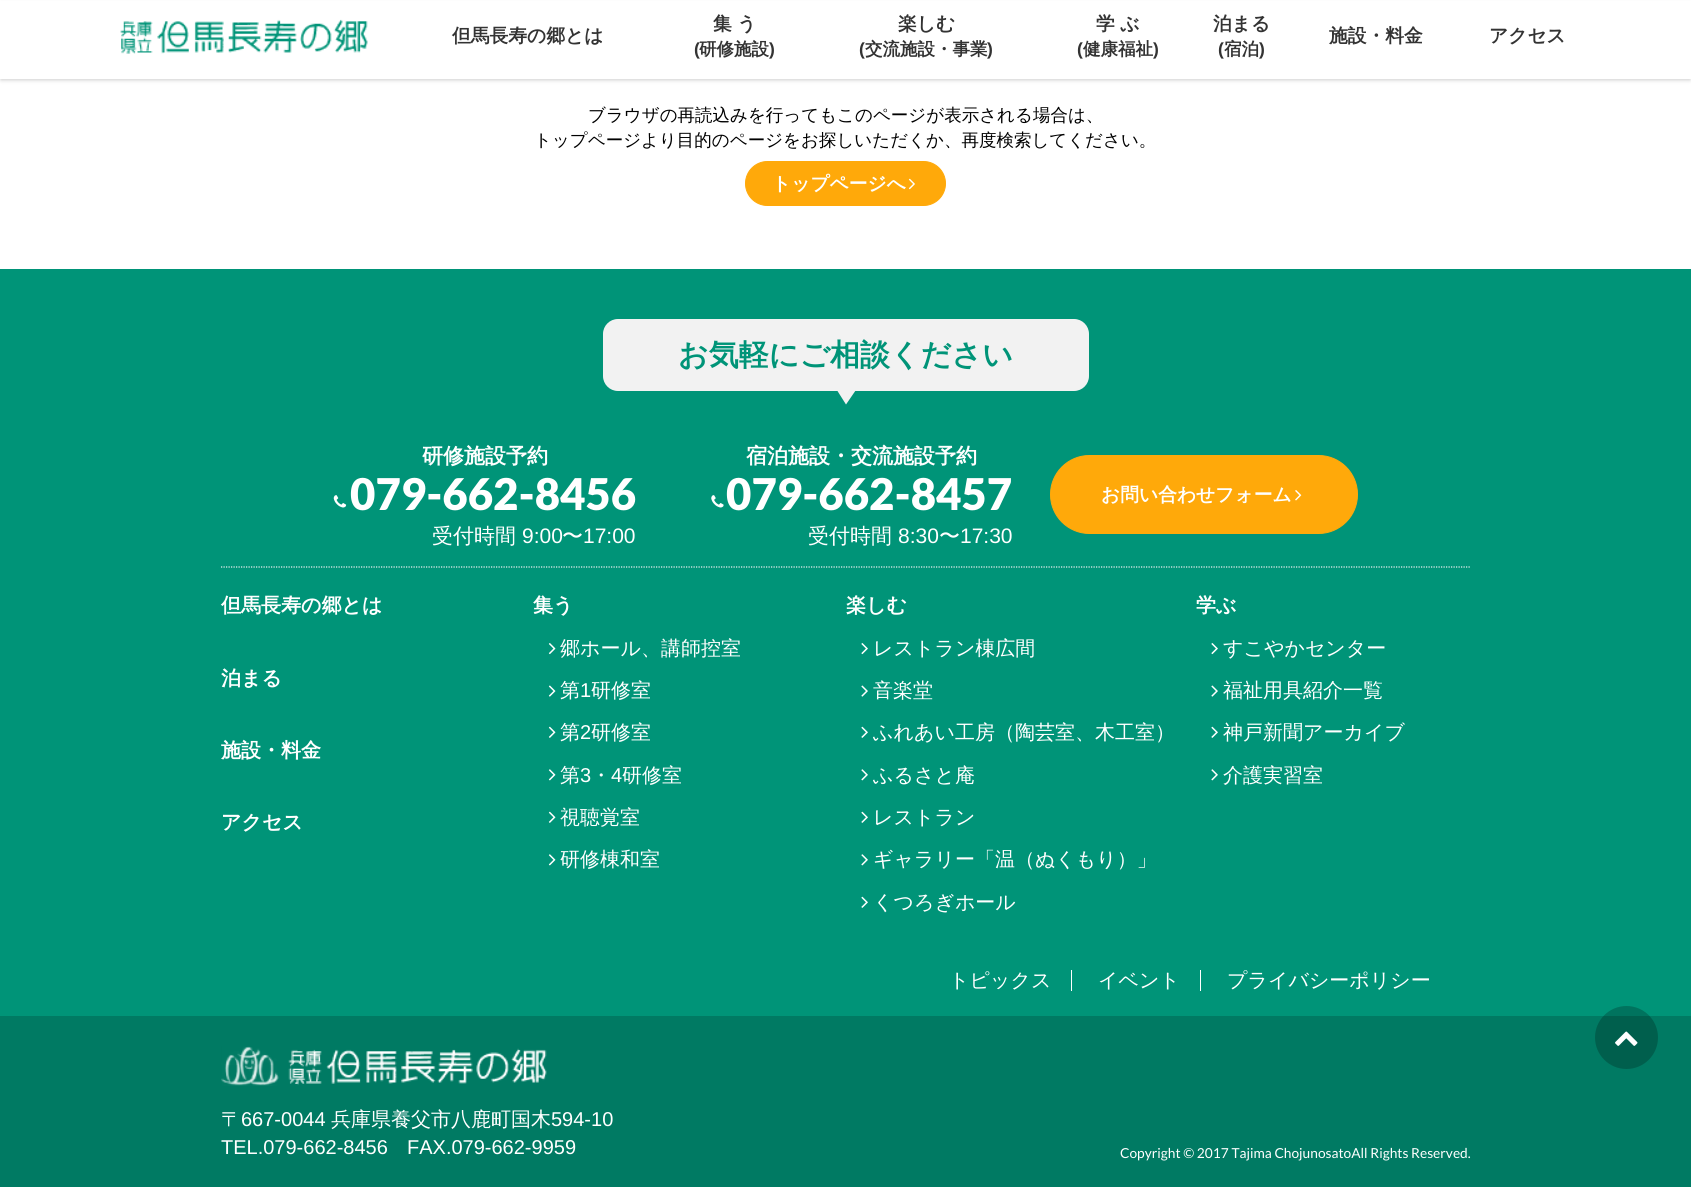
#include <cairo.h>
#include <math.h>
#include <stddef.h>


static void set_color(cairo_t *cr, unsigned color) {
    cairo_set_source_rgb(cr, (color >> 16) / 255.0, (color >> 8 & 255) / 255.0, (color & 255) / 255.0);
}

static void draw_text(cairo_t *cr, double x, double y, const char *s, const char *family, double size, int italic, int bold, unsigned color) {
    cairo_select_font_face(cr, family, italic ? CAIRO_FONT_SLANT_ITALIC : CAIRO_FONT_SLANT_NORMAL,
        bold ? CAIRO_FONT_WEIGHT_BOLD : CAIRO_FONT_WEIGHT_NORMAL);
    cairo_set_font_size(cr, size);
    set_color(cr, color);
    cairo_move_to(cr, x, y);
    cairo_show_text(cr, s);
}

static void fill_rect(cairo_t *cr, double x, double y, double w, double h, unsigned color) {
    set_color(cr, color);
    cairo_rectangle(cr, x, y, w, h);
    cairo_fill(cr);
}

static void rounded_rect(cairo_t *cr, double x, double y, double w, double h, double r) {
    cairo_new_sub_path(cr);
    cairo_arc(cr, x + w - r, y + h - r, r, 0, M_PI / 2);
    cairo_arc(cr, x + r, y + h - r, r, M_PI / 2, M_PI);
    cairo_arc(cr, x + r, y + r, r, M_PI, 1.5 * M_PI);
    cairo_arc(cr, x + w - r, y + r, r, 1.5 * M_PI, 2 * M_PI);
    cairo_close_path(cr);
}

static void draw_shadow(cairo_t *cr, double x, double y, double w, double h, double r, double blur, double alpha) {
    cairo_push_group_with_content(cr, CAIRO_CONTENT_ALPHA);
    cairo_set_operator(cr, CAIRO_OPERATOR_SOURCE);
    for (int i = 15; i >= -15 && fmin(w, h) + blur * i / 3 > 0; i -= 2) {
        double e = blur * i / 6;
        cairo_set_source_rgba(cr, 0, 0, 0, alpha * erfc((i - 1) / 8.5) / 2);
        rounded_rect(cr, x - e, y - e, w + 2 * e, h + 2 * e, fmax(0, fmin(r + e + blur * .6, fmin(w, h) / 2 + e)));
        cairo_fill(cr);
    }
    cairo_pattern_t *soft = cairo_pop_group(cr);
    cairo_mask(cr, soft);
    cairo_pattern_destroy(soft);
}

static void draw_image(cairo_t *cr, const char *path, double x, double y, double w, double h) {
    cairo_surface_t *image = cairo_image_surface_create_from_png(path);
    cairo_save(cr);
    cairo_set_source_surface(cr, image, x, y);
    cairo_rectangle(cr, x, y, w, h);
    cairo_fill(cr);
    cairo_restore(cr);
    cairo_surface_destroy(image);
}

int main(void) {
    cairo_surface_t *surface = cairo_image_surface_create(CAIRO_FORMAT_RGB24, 1691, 1187);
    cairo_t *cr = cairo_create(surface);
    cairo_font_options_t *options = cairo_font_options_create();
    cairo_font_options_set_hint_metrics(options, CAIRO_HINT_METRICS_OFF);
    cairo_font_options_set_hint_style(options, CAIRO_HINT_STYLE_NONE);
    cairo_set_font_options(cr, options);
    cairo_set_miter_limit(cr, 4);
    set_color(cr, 0xFFFFFF);
    cairo_paint(cr);
    set_color(cr, 0xCCCCCC);
    draw_shadow(cr, 1, 4, 1689, 76, 0, 2, 1);
    fill_rect(cr, 0, 1, 1691, 78, 0xFFFFFF);
    draw_image(cr, "assets/img1.png", 120, 19, 248, 35);
    draw_text(cr, 452, 42, "但馬長寿の郷とは", "WenQuanYi Zen Hei", 18.75, 0, 1, 0x333333);
    draw_text(cr, 713, 30, "集 う", "WenQuanYi Zen Hei", 18.75, 0, 1, 0x333333);
    draw_text(cr, 694, 55, "(", "Liberation Sans", 17.5, 0, 1, 0x333333);
    draw_text(cr, 699, 55, "研修施設", "WenQuanYi Zen Hei", 17.5, 0, 1, 0x333333);
    draw_text(cr, 769, 55, ")", "Liberation Sans", 17.5, 0, 1, 0x333333);
    draw_text(cr, 898, 30, "楽しむ", "WenQuanYi Zen Hei", 18.75, 0, 1, 0x333333);
    draw_text(cr, 859, 55, "(", "Liberation Sans", 17.5, 0, 1, 0x333333);
    draw_text(cr, 865, 55, "交流施設・事業", "WenQuanYi Zen Hei", 17.5, 0, 1, 0x333333);
    draw_text(cr, 987, 55, ")", "Liberation Sans", 17.5, 0, 1, 0x333333);
    draw_text(cr, 1096, 30, "学 ぶ", "WenQuanYi Zen Hei", 18.75, 0, 1, 0x333333);
    draw_text(cr, 1077, 55, "(", "Liberation Sans", 17.5, 0, 1, 0x333333);
    draw_text(cr, 1083, 55, "健康福祉", "WenQuanYi Zen Hei", 17.5, 0, 1, 0x333333);
    draw_text(cr, 1153, 55, ")", "Liberation Sans", 17.5, 0, 1, 0x333333);
    draw_text(cr, 1213, 30, "泊まる", "WenQuanYi Zen Hei", 18.75, 0, 1, 0x333333);
    draw_text(cr, 1218, 55, "(", "Liberation Sans", 17.5, 0, 1, 0x333333);
    draw_text(cr, 1224, 55, "宿泊", "WenQuanYi Zen Hei", 17.5, 0, 1, 0x333333);
    draw_text(cr, 1259, 55, ")", "Liberation Sans", 17.5, 0, 1, 0x333333);
    draw_text(cr, 1329, 42, "施設・料金", "WenQuanYi Zen Hei", 18.75, 0, 1, 0x333333);
    draw_text(cr, 1489, 42, "アクセス", "WenQuanYi Zen Hei", 18.75, 0, 1, 0x333333);
    draw_text(cr, 588, 121, "ブラウザの再読込みを行ってもこのページが表示される場合は、", "WenQuanYi Zen Hei Medium", 17.5, 0, 0, 0x000000);
    draw_text(cr, 534, 146, "トップページより目的のページをお探しいただくか、再度検索してください。", "WenQuanYi Zen Hei Medium", 17.5, 0, 0, 0x000000);
    set_color(cr, 0xFFA90A);
    rounded_rect(cr, 745.5, 161.5, 200, 44, 22);
    cairo_fill_preserve(cr);
    cairo_set_line_width(cr, 1);
    cairo_stroke(cr);
    draw_text(cr, 772, 190, "トップページへ", "WenQuanYi Zen Hei", 18.75, 0, 1, 0xFFFFFF);
    draw_image(cr, "assets/img2.png", 908, 178, 7, 12);
    fill_rect(cr, 0, 1016, 1691, 171, 0x007A63);
    fill_rect(cr, 0, 269, 1691, 747, 0x009478);
    set_color(cr, 0xF2F2F2);
    rounded_rect(cr, 603, 319, 486, 72, 15);
    cairo_fill(cr);
    draw_text(cr, 678, 365, "お気軽にご相談ください", "WenQuanYi Zen Hei", 30, 0, 1, 0x009478);
    set_color(cr, 0xF2F2F2);
    cairo_new_path(cr);
    cairo_move_to(cr, 834, 385.5);
    cairo_line_to(cr, 859, 385.5);
    cairo_line_to(cr, 846, 404.5);
    cairo_close_path(cr);
    cairo_fill(cr);
    draw_text(cr, 422, 463, "研修施設予約", "WenQuanYi Zen Hei", 21, 0, 1, 0xFFFFFF);
    draw_image(cr, "assets/img3.png", 333, 495, 14, 13);
    draw_text(cr, 350, 510, "079-662-8456", "Lato Black", 43.75, 0, 0, 0xFFFFFF);
    draw_text(cr, 432, 543, "受付時間", "WenQuanYi Zen Hei Medium", 21, 0, 0, 0xFFFFFF);
    draw_text(cr, 522, 543, "9:00", "Liberation Sans", 21, 0, 0, 0xFFFFFF);
    draw_text(cr, 562, 543, "〜", "WenQuanYi Zen Hei Medium", 21, 0, 0, 0xFFFFFF);
    draw_text(cr, 583, 543, "17:00", "Liberation Sans", 21, 0, 0, 0xFFFFFF);
    draw_text(cr, 746, 463, "宿泊施設・交流施設予約", "WenQuanYi Zen Hei", 21, 0, 1, 0xFFFFFF);
    draw_image(cr, "assets/img4.png", 711, 495, 13, 13);
    draw_text(cr, 726, 510, "079-662-8457", "Lato Black", 43.75, 0, 0, 0xFFFFFF);
    draw_text(cr, 808, 543, "受付時間", "WenQuanYi Zen Hei Medium", 21, 0, 0, 0xFFFFFF);
    draw_text(cr, 898, 543, "8:30", "Liberation Sans", 21, 0, 0, 0xFFFFFF);
    draw_text(cr, 939, 543, "〜", "WenQuanYi Zen Hei Medium", 21, 0, 0, 0xFFFFFF);
    draw_text(cr, 960, 543, "17:30", "Liberation Sans", 21, 0, 0, 0xFFFFFF);
    set_color(cr, 0xFFA90A);
    rounded_rect(cr, 1050.5, 455.5, 307, 78, 39);
    cairo_fill_preserve(cr);
    cairo_stroke(cr);
    draw_text(cr, 1101, 501, "お問い合わせフォーム", "WenQuanYi Zen Hei", 18.75, 0, 1, 0xFFFFFF);
    draw_image(cr, "assets/img5.png", 1295, 490, 7, 11);
    cairo_new_path(cr);
    cairo_move_to(cr, 221, 567);
    cairo_line_to(cr, 1471, 567);
    set_color(cr, 0xF2F2F2);
    cairo_set_line_width(cr, 1.2);
    cairo_set_dash(cr, (double[]){1.25, 1.25}, 2, 0);
    cairo_stroke(cr);
    draw_text(cr, 221, 612, "但馬⾧寿の郷とは", "WenQuanYi Zen Hei", 20, 0, 1, 0xFFFFFF);
    draw_text(cr, 221, 685, "泊まる", "WenQuanYi Zen Hei", 20, 0, 1, 0xFFFFFF);
    draw_text(cr, 221, 757, "施設・料金", "WenQuanYi Zen Hei", 20, 0, 1, 0xFFFFFF);
    draw_text(cr, 221, 829, "アクセス", "WenQuanYi Zen Hei", 20, 0, 1, 0xFFFFFF);
    draw_text(cr, 533, 612, "集う", "WenQuanYi Zen Hei", 20, 0, 1, 0xFFFFFF);
    draw_image(cr, "assets/img6.png", 548, 643, 8, 12);
    draw_text(cr, 560, 655, "郷ホール、講師控室", "WenQuanYi Zen Hei Medium", 20, 0, 0, 0xFFFFFF);
    draw_image(cr, "assets/img7.png", 548, 685, 8, 12);
    draw_text(cr, 560, 697, "第", "WenQuanYi Zen Hei Medium", 20, 0, 0, 0xFFFFFF);
    draw_text(cr, 580, 697, "1", "Liberation Sans", 20, 0, 0, 0xFFFFFF);
    draw_text(cr, 591, 697, "研修室", "WenQuanYi Zen Hei Medium", 20, 0, 0, 0xFFFFFF);
    draw_image(cr, "assets/img8.png", 548, 726, 8, 12);
    draw_text(cr, 560, 739, "第", "WenQuanYi Zen Hei Medium", 20, 0, 0, 0xFFFFFF);
    draw_text(cr, 580, 739, "2", "Liberation Sans", 20, 0, 0, 0xFFFFFF);
    draw_text(cr, 591, 739, "研修室", "WenQuanYi Zen Hei Medium", 20, 0, 0, 0xFFFFFF);
    draw_image(cr, "assets/img9.png", 548, 769, 8, 12);
    draw_text(cr, 560, 782, "第", "WenQuanYi Zen Hei Medium", 20, 0, 0, 0xFFFFFF);
    draw_text(cr, 580, 782, "3", "Liberation Sans", 20, 0, 0, 0xFFFFFF);
    draw_text(cr, 591, 782, "・", "WenQuanYi Zen Hei Medium", 20, 0, 0, 0xFFFFFF);
    draw_text(cr, 611, 782, "4", "Liberation Sans", 20, 0, 0, 0xFFFFFF);
    draw_text(cr, 622, 782, "研修室", "WenQuanYi Zen Hei Medium", 20, 0, 0, 0xFFFFFF);
    draw_image(cr, "assets/img8.png", 548, 811, 8, 12);
    draw_text(cr, 560, 824, "視聴覚室", "WenQuanYi Zen Hei Medium", 20, 0, 0, 0xFFFFFF);
    draw_image(cr, "assets/img9.png", 548, 854, 8, 12);
    draw_text(cr, 560, 866, "研修棟和室", "WenQuanYi Zen Hei Medium", 20, 0, 0, 0xFFFFFF);
    draw_text(cr, 846, 612, "楽しむ", "WenQuanYi Zen Hei", 20, 0, 1, 0xFFFFFF);
    draw_image(cr, "assets/img10.png", 861, 643, 7, 12);
    draw_text(cr, 873, 655, "レストラン棟広間", "WenQuanYi Zen Hei Medium", 20, 0, 0, 0xFFFFFF);
    draw_image(cr, "assets/img11.png", 861, 685, 7, 12);
    draw_text(cr, 873, 697, "音楽堂", "WenQuanYi Zen Hei Medium", 20, 0, 0, 0xFFFFFF);
    draw_image(cr, "assets/img12.png", 861, 726, 7, 12);
    draw_text(cr, 873, 739, "ふれあい工房（陶芸室、木工室）", "WenQuanYi Zen Hei Medium", 20, 0, 0, 0xFFFFFF);
    draw_image(cr, "assets/img13.png", 861, 769, 7, 12);
    draw_text(cr, 873, 782, "ふるさと庵", "WenQuanYi Zen Hei Medium", 20, 0, 0, 0xFFFFFF);
    draw_image(cr, "assets/img12.png", 861, 811, 7, 12);
    draw_text(cr, 873, 824, "レストラン", "WenQuanYi Zen Hei Medium", 20, 0, 0, 0xFFFFFF);
    draw_image(cr, "assets/img13.png", 861, 854, 7, 12);
    draw_text(cr, 873, 866, "ギャラリー「温（ぬくもり）」", "WenQuanYi Zen Hei Medium", 20, 0, 0, 0xFFFFFF);
    draw_image(cr, "assets/img12.png", 861, 896, 7, 12);
    draw_text(cr, 873, 909, "くつろぎホール", "WenQuanYi Zen Hei Medium", 20, 0, 0, 0xFFFFFF);
    draw_text(cr, 1196, 612, "学ぶ", "WenQuanYi Zen Hei", 20, 0, 1, 0xFFFFFF);
    draw_image(cr, "assets/img10.png", 1211, 643, 7, 12);
    draw_text(cr, 1223, 655, "すこやかセンター", "WenQuanYi Zen Hei Medium", 20, 0, 0, 0xFFFFFF);
    draw_image(cr, "assets/img11.png", 1211, 685, 7, 12);
    draw_text(cr, 1223, 697, "福祉用具紹介一覧", "WenQuanYi Zen Hei Medium", 20, 0, 0, 0xFFFFFF);
    draw_image(cr, "assets/img12.png", 1211, 726, 7, 12);
    draw_text(cr, 1223, 739, "神戸新聞アーカイブ", "WenQuanYi Zen Hei Medium", 20, 0, 0, 0xFFFFFF);
    draw_image(cr, "assets/img13.png", 1211, 769, 7, 12);
    draw_text(cr, 1223, 782, "介護実習室", "WenQuanYi Zen Hei Medium", 20, 0, 0, 0xFFFFFF);
    draw_text(cr, 949, 987, "トピックス", "WenQuanYi Zen Hei Medium", 20, 0, 0, 0xFFFFFF);
    fill_rect(cr, 1071, 970, 1, 21, 0xFFFFFF);
    draw_text(cr, 1098, 987, "イベント", "WenQuanYi Zen Hei Medium", 20, 0, 0, 0xFFFFFF);
    fill_rect(cr, 1200, 970, 1, 21, 0xFFFFFF);
    draw_text(cr, 1227, 987, "プライバシーポリシー", "WenQuanYi Zen Hei Medium", 20, 0, 0, 0xFFFFFF);
    draw_image(cr, "assets/img14.png", 221, 1046, 326, 40);
    draw_text(cr, 221, 1126, "〒", "WenQuanYi Zen Hei Medium", 20, 0, 0, 0xFFFFFF);
    draw_text(cr, 241, 1126, "667-0044", "Liberation Sans", 20, 0, 0, 0xFFFFFF);
    draw_text(cr, 331, 1126, "兵庫県養父市八鹿町国木", "WenQuanYi Zen Hei Medium", 20, 0, 0, 0xFFFFFF);
    draw_text(cr, 551, 1126, "594-10", "Liberation Sans", 20, 0, 0, 0xFFFFFF);
    draw_text(cr, 221, 1154, "TEL.079-662-8456", "Liberation Sans", 20, 0, 0, 0xFFFFFF);
    draw_text(cr, 407, 1154, "FAX.079-662-9959", "Liberation Sans", 20, 0, 0, 0xFFFFFF);
    draw_text(cr, 1120, 1158, "Copyright © 2017 Tajima ChojunosatoAll Rights Reserved.", "Lato", 13.75, 0, 0, 0xFFFFFF);
    cairo_set_source_rgba(cr, 0, 0, 0, 0.22);
    cairo_new_path(cr);
    cairo_arc(cr, 1626.5, 1037.5, 31.5, 0, 2 * M_PI);
    cairo_fill(cr);
    draw_image(cr, "assets/img15.png", 1615, 1031, 23, 15);
    cairo_surface_write_to_png(surface, "output.png");
    cairo_font_options_destroy(options);
    cairo_destroy(cr);
    cairo_surface_destroy(surface);
    return 0;
}
